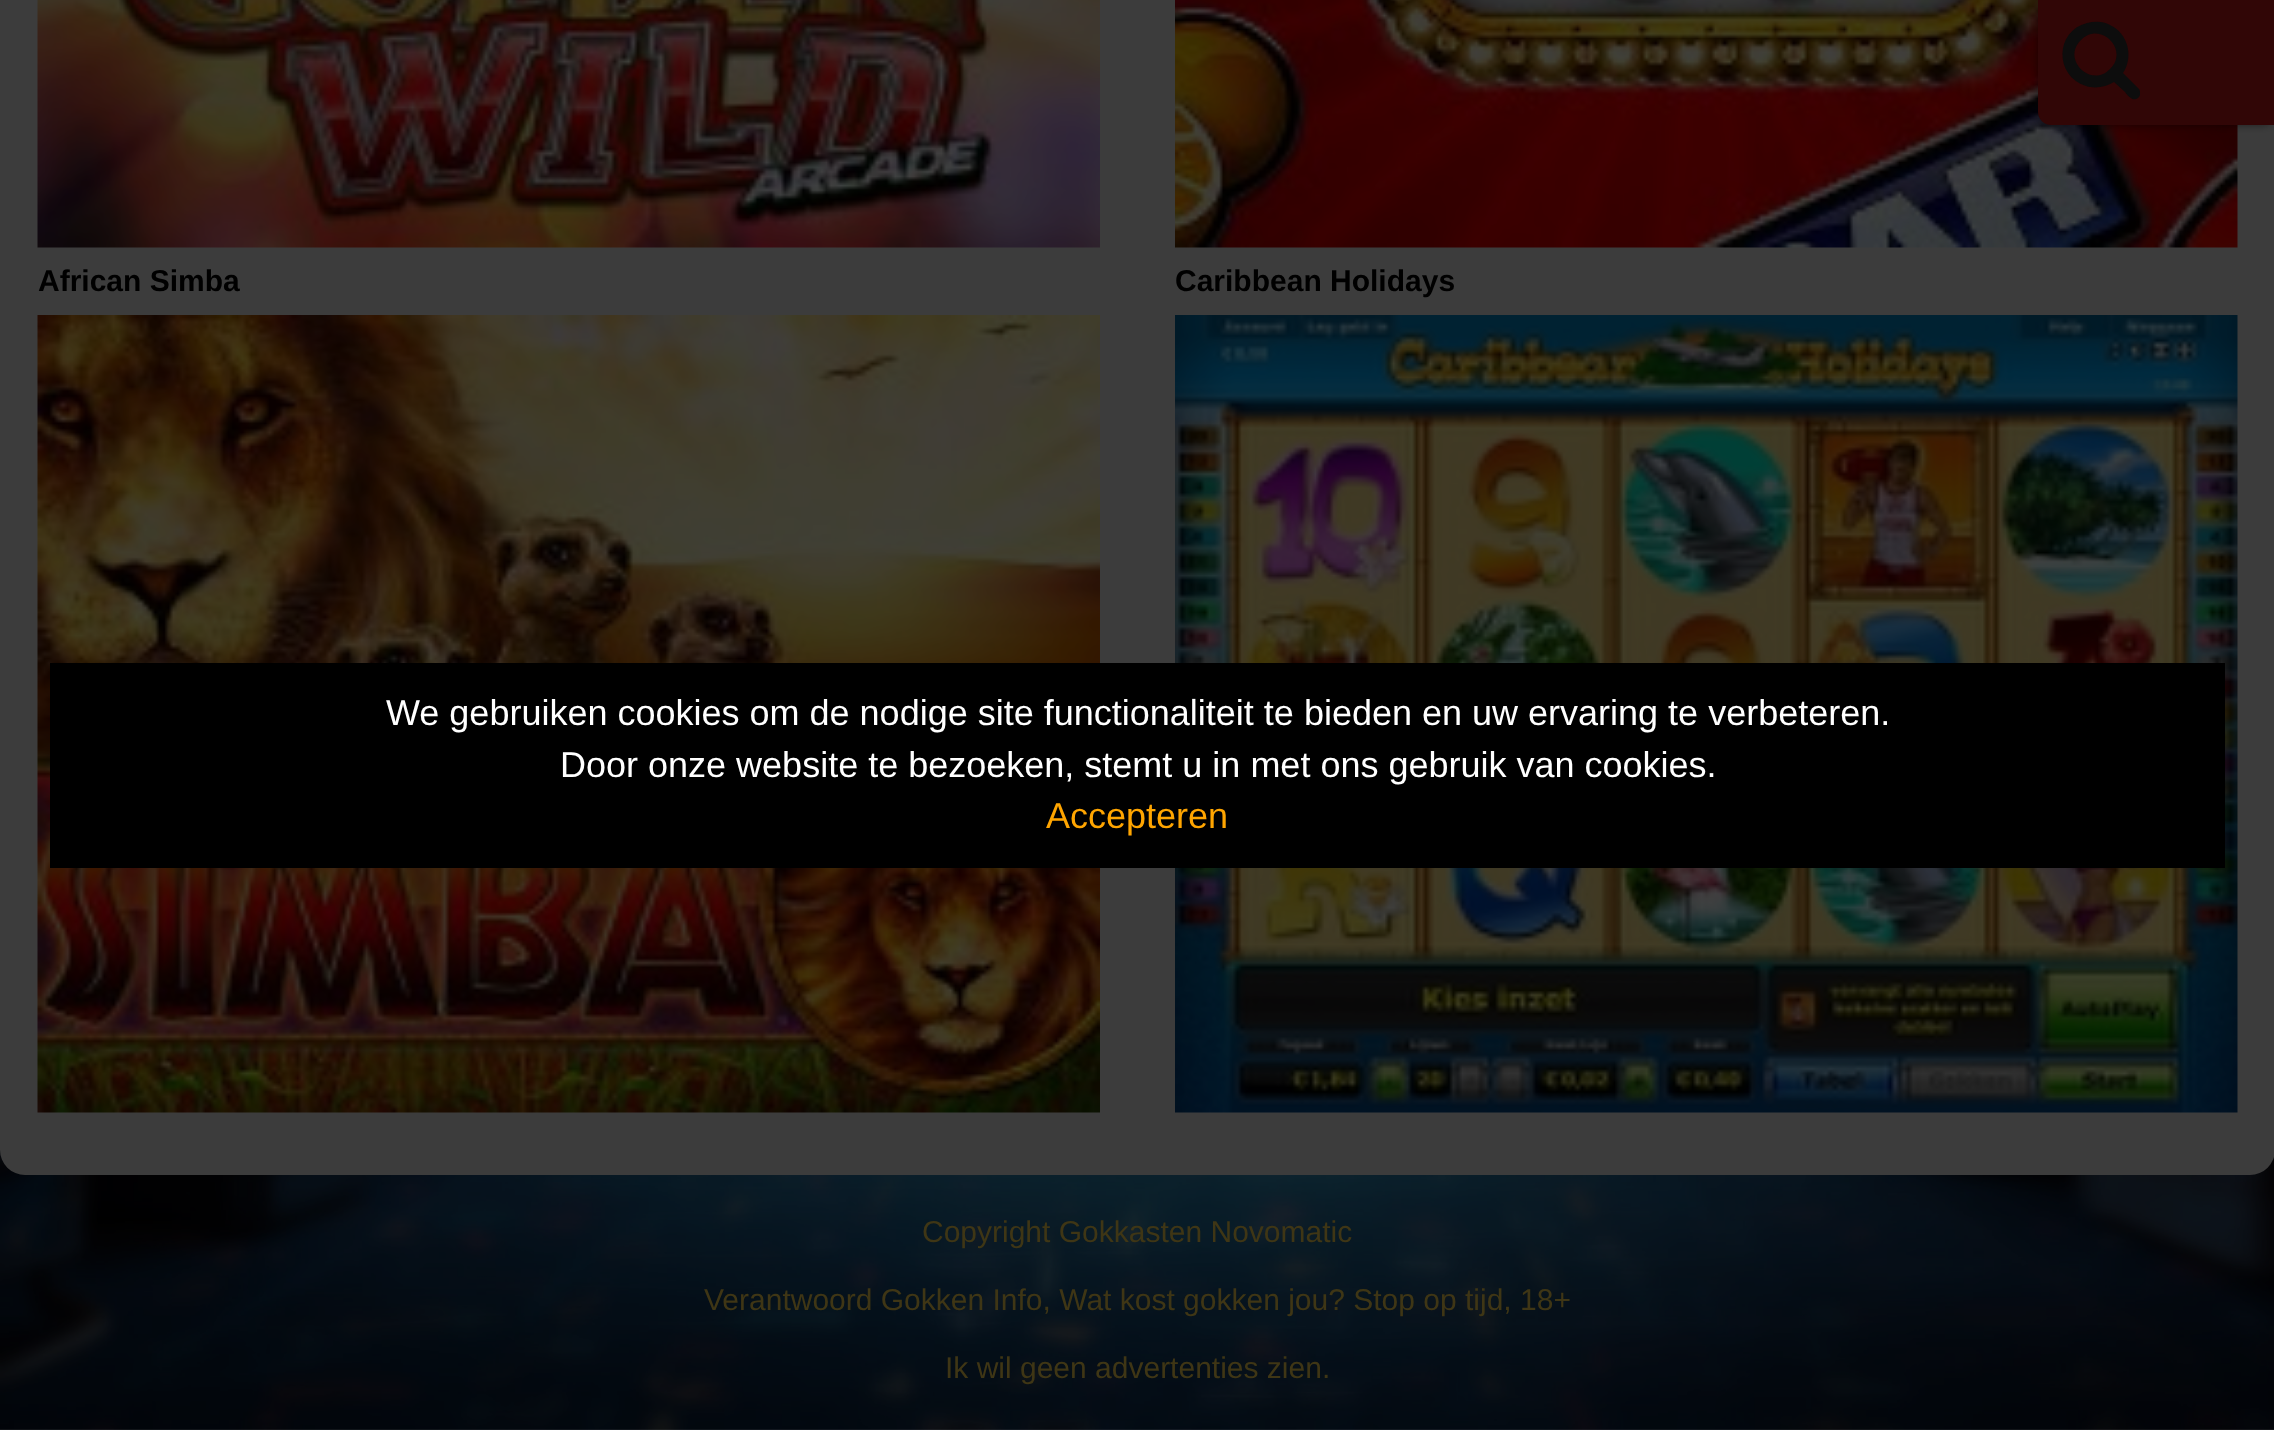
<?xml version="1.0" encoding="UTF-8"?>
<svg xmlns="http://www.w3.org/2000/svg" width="2274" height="1430">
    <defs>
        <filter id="blur1" x="-50%" y="-200%" width="200%" height="500%"><feGaussianBlur stdDeviation="4"/></filter>
    </defs>
    <rect width="100%" height="100%" fill="#FFFFFF"/>
    <image x="0" y="1150" width="2274" height="280" href="img_01.png"/>
    <rect x="0" y="-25" width="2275" height="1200" rx="25" fill="#3C3C3C"/>
    <image x="1175" y="0" width="1063" height="248" href="img_03.png"/>
    <rect x="2038" y="0" width="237" height="125" rx="13" fill="#000000" fill-opacity="0.5" filter="url(#blur1)"/>
    <path d="M 2038 0 H 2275 V 125 H 2051 C 2044 125 2038 119 2038 112 Z" fill="#310606"/>
    <path d="M 2110 69 C 2130 50 2100 20 2081 40 C 2061 59 2091 89 2110 69 Z M 2140 94 C 2140 96 2139 97 2138 98 C 2133 102 2128 96 2125 92 L 2114 82 C 2106 87 2095 89 2086 86 C 2054 76 2055 31 2087 23 C 2095 21 2103 21 2110 25 C 2128 33 2134 57 2123 73 L 2139 89 C 2140 90 2140 92 2140 94 Z" fill="#0D0D0D"/>
    <image x="37" y="0" width="1063" height="248" href="img_02.png"/>
    <text x="38" y="291" font-family="Liberation Sans" font-size="30" font-weight="700" fill="#000000">African Simba</text>
    <image x="37" y="315" width="1063" height="798" href="img_04.png"/>
    <text x="1175" y="291" font-family="Liberation Sans" font-size="30" font-weight="700" fill="#000000">Caribbean Holidays</text>
    <image x="1175" y="315" width="1063" height="798" href="img_05.png"/>
    <rect x="50" y="663" width="2175" height="205" fill="#000000"/>
    <text x="386" y="725" font-family="Liberation Sans" font-size="36" fill="#FFFFFF">We gebruiken cookies om de nodige site functionaliteit te bieden en uw ervaring te verbeteren.</text>
    <text x="560" y="777" font-family="Liberation Sans" font-size="36" fill="#FFFFFF">Door onze website te bezoeken, stemt u in met ons gebruik van cookies.</text>
    <text x="1046" y="828" font-family="Liberation Sans" font-size="36" fill="#FFA500">Accepteren</text>
    <text x="922" y="1242" font-family="Liberation Sans" font-size="30" fill="#3F3615">Copyright Gokkasten Novomatic</text>
    <text x="704" y="1310" font-family="Liberation Sans" font-size="30" fill="#3F3615">Verantwoord Gokken Info, Wat kost gokken jou? Stop op tijd, 18+</text>
    <text x="945" y="1378" font-family="Liberation Sans" font-size="30" fill="#3F3615">Ik wil geen advertenties zien.</text>
</svg>
